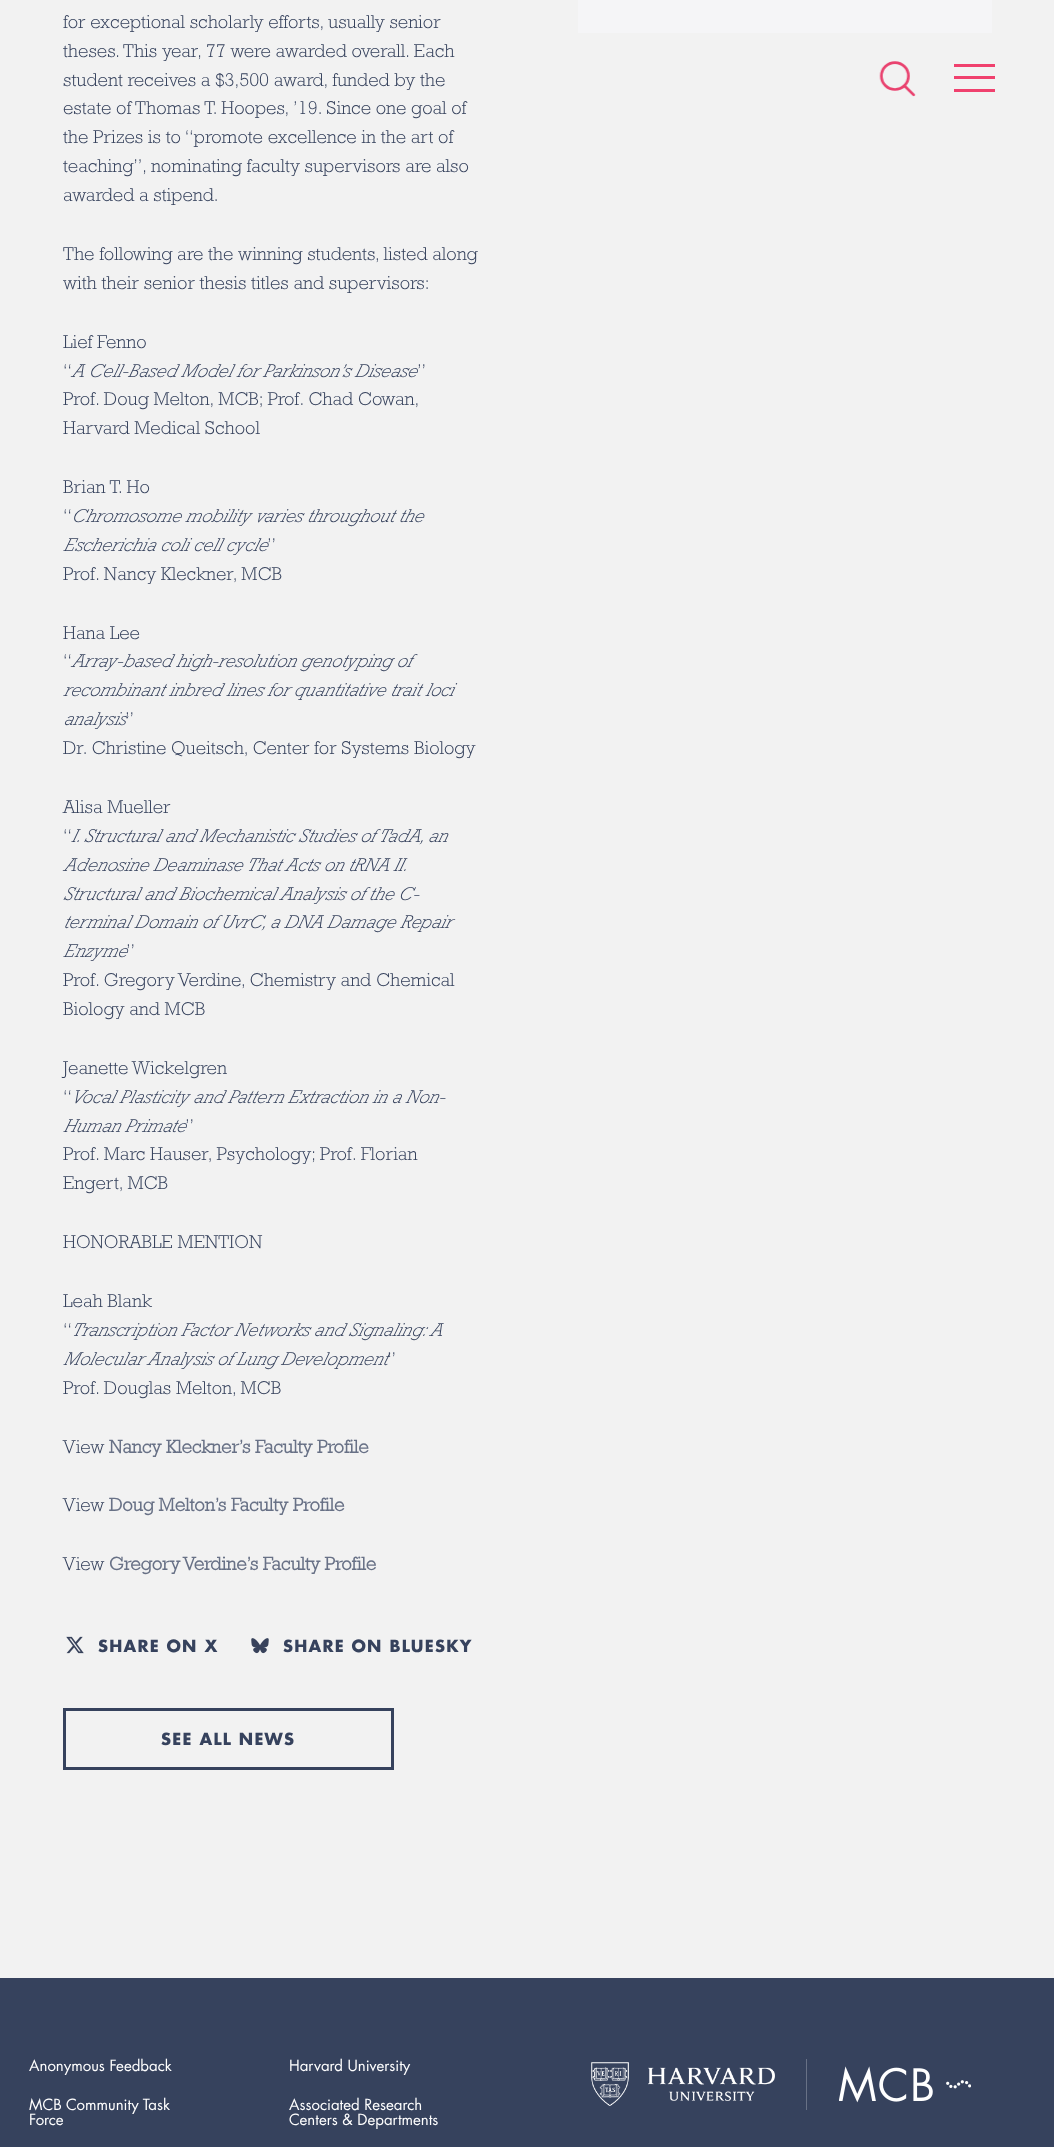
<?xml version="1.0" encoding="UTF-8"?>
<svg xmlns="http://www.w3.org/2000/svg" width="1054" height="2147">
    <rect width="100%" height="100%" fill="#36425D"/>
    <rect x="0" y="0" width="1054" height="1978" fill="#F2F2F2"/>
    <text font-family="Rockwell" font-size="18.75" font-weight="300" fill="#36425D">
        <tspan x="63" y="28">for exceptional scholarly efforts, usually senior</tspan>
        <tspan x="63" y="57">theses. This year, 77 were awarded overall. Each</tspan>
        <tspan x="63" y="86">student receives a $3,500 award, funded by the</tspan>
        <tspan x="63" y="114">estate of Thomas T. Hoopes, ’19. Since one goal of</tspan>
        <tspan x="63" y="143">the Prizes is to “promote excellence in the art of</tspan>
        <tspan x="63" y="172">teaching”, nominating faculty supervisors are also</tspan>
        <tspan x="63" y="201">awarded a stipend.</tspan>
    </text>
    <text font-family="Rockwell" font-size="18.75" font-weight="300" fill="#36425D">
        <tspan x="63" y="260">The following are the winning students, listed along</tspan>
        <tspan x="63" y="289">with their senior thesis titles and supervisors:</tspan>
    </text>
    <text font-family="Rockwell" font-size="18.75" font-weight="300" fill="#36425D">
        <tspan x="63" y="348">Lief Fenno</tspan>
        <tspan x="63" y="377">“</tspan>
    </text>
    <text x="71" y="377" font-family="Rockwell" font-size="18.75" font-weight="300" font-style="italic" fill="#36425D">A Cell-Based Model for Parkinson’s Disease</text>
    <text x="417" y="377" font-family="Rockwell" font-size="18.75" font-weight="300" fill="#36425D">”</text>
    <text font-family="Rockwell" font-size="18.75" font-weight="300" fill="#36425D">
        <tspan x="63" y="405">Prof. Doug Melton, MCB; Prof. Chad Cowan,</tspan>
        <tspan x="63" y="434">Harvard Medical School</tspan>
    </text>
    <text font-family="Rockwell" font-size="18.75" font-weight="300" fill="#36425D">
        <tspan x="63" y="493">Brian T. Ho</tspan>
        <tspan x="63" y="522">“</tspan>
    </text>
    <text x="71" y="522" font-family="Rockwell" font-size="18.75" font-weight="300" font-style="italic" fill="#36425D">Chromosome mobility varies throughout the</text>
    <text x="63" y="551" font-family="Rockwell" font-size="18.75" font-weight="300" font-style="italic" fill="#36425D">Escherichia coli cell cycle</text>
    <text x="267" y="551" font-family="Rockwell" font-size="18.75" font-weight="300" fill="#36425D">”</text>
    <text x="63" y="580" font-family="Rockwell" font-size="18.75" font-weight="300" fill="#36425D">Prof. Nancy Kleckner, MCB</text>
    <text font-family="Rockwell" font-size="18.75" font-weight="300" fill="#36425D">
        <tspan x="63" y="639">Hana Lee</tspan>
        <tspan x="63" y="667">“</tspan>
    </text>
    <text x="71" y="667" font-family="Rockwell" font-size="18.75" font-weight="300" font-style="italic" fill="#36425D">Array-based high-resolution genotyping of</text>
    <text font-family="Rockwell" font-size="18.75" font-weight="300" font-style="italic" fill="#36425D">
        <tspan x="63" y="696">recombinant inbred lines for quantitative trait loci</tspan>
        <tspan x="63" y="725">analysis</tspan>
    </text>
    <text x="125" y="725" font-family="Rockwell" font-size="18.75" font-weight="300" fill="#36425D">”</text>
    <text x="63" y="754" font-family="Rockwell" font-size="18.75" font-weight="300" fill="#36425D">Dr. Christine Queitsch, Center for Systems Biology</text>
    <text font-family="Rockwell" font-size="18.75" font-weight="300" fill="#36425D">
        <tspan x="63" y="813">Alisa Mueller</tspan>
        <tspan x="63" y="842">“</tspan>
    </text>
    <text x="71" y="842" font-family="Rockwell" font-size="18.75" font-weight="300" font-style="italic" fill="#36425D">I. Structural and Mechanistic Studies of TadA, an</text>
    <text font-family="Rockwell" font-size="18.75" font-weight="300" font-style="italic" fill="#36425D">
        <tspan x="63" y="871">Adenosine Deaminase That Acts on tRNA II.</tspan>
        <tspan x="63" y="900">Structural and Biochemical Analysis of the C-</tspan>
        <tspan x="63" y="928">terminal Domain of UvrC, a DNA Damage Repair</tspan>
        <tspan x="63" y="957">Enzyme</tspan>
    </text>
    <text x="126" y="957" font-family="Rockwell" font-size="18.75" font-weight="300" fill="#36425D">”</text>
    <text font-family="Rockwell" font-size="18.75" font-weight="300" fill="#36425D">
        <tspan x="63" y="986">Prof. Gregory Verdine, Chemistry and Chemical</tspan>
        <tspan x="63" y="1015">Biology and MCB</tspan>
    </text>
    <text font-family="Rockwell" font-size="18.75" font-weight="300" fill="#36425D">
        <tspan x="63" y="1074">Jeanette Wickelgren</tspan>
        <tspan x="63" y="1103">“</tspan>
    </text>
    <text x="71" y="1103" font-family="Rockwell" font-size="18.75" font-weight="300" font-style="italic" fill="#36425D">Vocal Plasticity and Pattern Extraction in a Non-</text>
    <text x="63" y="1132" font-family="Rockwell" font-size="18.75" font-weight="300" font-style="italic" fill="#36425D">Human Primate</text>
    <text x="185" y="1132" font-family="Rockwell" font-size="18.75" font-weight="300" fill="#36425D">”</text>
    <text font-family="Rockwell" font-size="18.75" font-weight="300" fill="#36425D">
        <tspan x="63" y="1160">Prof. Marc Hauser, Psychology; Prof. Florian</tspan>
        <tspan x="63" y="1189">Engert, MCB</tspan>
    </text>
    <text x="63" y="1248" font-family="Rockwell" font-size="18.75" font-weight="300" fill="#36425D">HONORABLE MENTION</text>
    <text font-family="Rockwell" font-size="18.75" font-weight="300" fill="#36425D">
        <tspan x="63" y="1307">Leah Blank</tspan>
        <tspan x="63" y="1336">“</tspan>
    </text>
    <text x="71" y="1336" font-family="Rockwell" font-size="18.75" font-weight="300" font-style="italic" fill="#36425D">Transcription Factor Networks and Signaling: A</text>
    <text x="63" y="1365" font-family="Rockwell" font-size="18.75" font-weight="300" font-style="italic" fill="#36425D">Molecular Analysis of Lung Development</text>
    <text x="387" y="1365" font-family="Rockwell" font-size="18.75" font-weight="300" fill="#36425D">”</text>
    <text x="63" y="1394" font-family="Rockwell" font-size="18.75" font-weight="300" fill="#36425D">Prof. Douglas Melton, MCB</text>
    <text x="63" y="1453" font-family="Rockwell" font-size="18.75" font-weight="300" fill="#36425D">View</text>
    <text x="109" y="1453" font-family="Rockwell" font-size="18.75" font-weight="700" fill="#687186">Nancy Kleckner’s Faculty Profile</text>
    <text x="63" y="1511" font-family="Rockwell" font-size="18.75" font-weight="300" fill="#36425D">View</text>
    <text x="109" y="1511" font-family="Rockwell" font-size="18.75" font-weight="700" fill="#687186">Doug Melton’s Faculty Profile</text>
    <text x="63" y="1570" font-family="Rockwell" font-size="18.75" font-weight="300" fill="#36425D">View</text>
    <text x="109" y="1570" font-family="Rockwell" font-size="18.75" font-weight="700" fill="#687186">Gregory Verdine’s Faculty Profile</text>
    <image x="66" y="1636" width="18" height="18" href="img_01.png"/>
    <text x="98" y="1652" font-family="Futura" font-size="16.25" font-weight="700" letter-spacing="1.25" fill="#36425D">SHARE ON X</text>
    <image x="251" y="1638" width="18" height="16" href="img_02.png"/>
    <text x="283" y="1652" font-family="Futura" font-size="16.25" font-weight="700" letter-spacing="1.25" fill="#36425D">SHARE ON BLUESKY</text>
    <rect x="64.5" y="1709.5" width="328" height="59" fill="none" stroke="#36425D" stroke-width="3"/>
    <text x="161" y="1745" font-family="Futura" font-size="16.25" font-weight="700" letter-spacing="1.25" fill="#36425D">SEE ALL NEWS</text>
    <rect x="578" y="0" width="414" height="33" fill="#F5F5F7"/>
    <image x="879" y="61" width="37" height="36" href="img_03.png"/>
    <rect x="954" y="64" width="41" height="3" fill="#F0416E"/>
    <rect x="954" y="76" width="41" height="3" fill="#F0416E"/>
    <rect x="954" y="89" width="41" height="3" fill="#F0416E"/>
    <text x="29" y="2071" font-family="Futura" font-size="15" fill="#FFFFFF">Anonymous Feedback</text>
    <text font-family="Futura" font-size="15" fill="#FFFFFF">
        <tspan x="29" y="2110">MCB Community Task</tspan>
        <tspan x="29" y="2125">Force</tspan>
    </text>
    <text x="289" y="2071" font-family="Futura" font-size="15" fill="#FFFFFF">Harvard University</text>
    <text font-family="Futura" font-size="15" fill="#FFFFFF">
        <tspan x="289" y="2110">Associated Research</tspan>
        <tspan x="289" y="2125">Centers &amp; Departments</tspan>
    </text>
    <rect x="806" y="2059" width="1" height="51" fill="#687186"/>
    <image x="591" y="2062" width="184" height="44" href="img_04.png"/>
    <image x="839" y="2066" width="132" height="37" href="img_05.png"/>
</svg>
